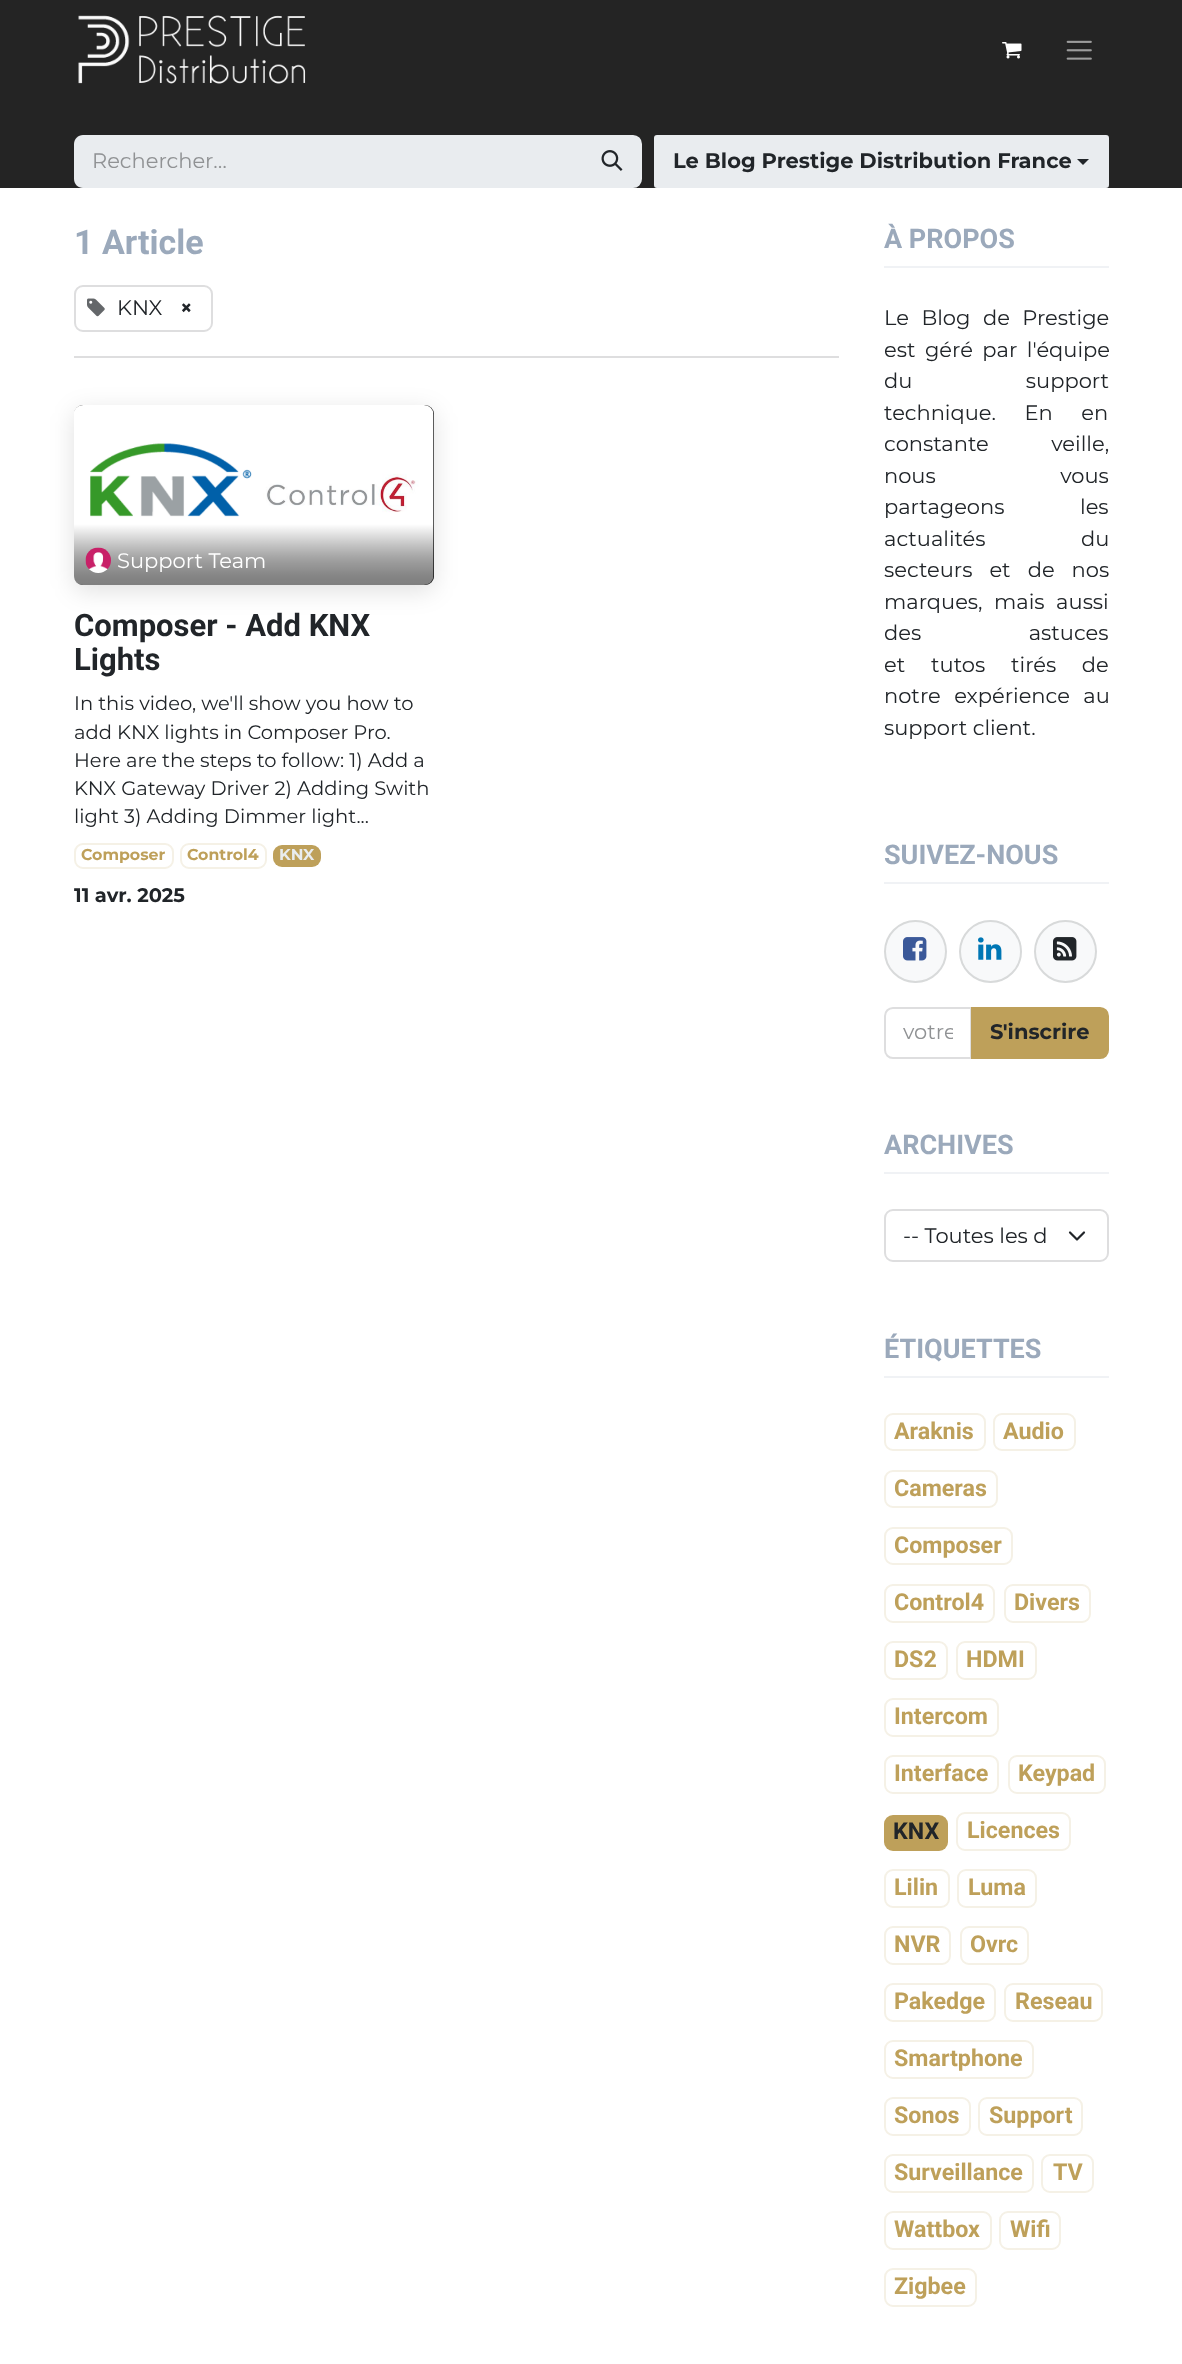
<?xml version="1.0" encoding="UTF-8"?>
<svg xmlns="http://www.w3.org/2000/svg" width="1182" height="2364">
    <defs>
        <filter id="blur1" x="-50%" y="-200%" width="200%" height="500%"><feGaussianBlur stdDeviation="12"/></filter>
        <linearGradient id="g1" gradientUnits="userSpaceOnUse" x1="254" y1="524" x2="254" y2="585"><stop offset="0" stop-color="#000000" stop-opacity="0"/><stop offset="0.19" stop-color="#000000" stop-opacity="0.13"/><stop offset="0.34" stop-color="#000000" stop-opacity="0.23"/><stop offset="0.47" stop-color="#000000" stop-opacity="0.31"/><stop offset="0.56" stop-color="#000000" stop-opacity="0.36"/><stop offset="0.65" stop-color="#000000" stop-opacity="0.4"/><stop offset="0.73" stop-color="#000000" stop-opacity="0.43"/><stop offset="0.8" stop-color="#000000" stop-opacity="0.46"/><stop offset="0.86" stop-color="#000000" stop-opacity="0.48"/><stop offset="0.91" stop-color="#000000" stop-opacity="0.49"/><stop offset="0.95" stop-color="#000000" stop-opacity="0.49"/><stop offset="0.98" stop-color="#000000" stop-opacity="0.5"/><stop offset="1" stop-color="#000000" stop-opacity="0.5"/></linearGradient>
        <clipPath id="clip1"><rect x="903" y="1019" width="50" height="27"/></clipPath>
    </defs>
    <rect width="100%" height="100%" fill="#FFFFFF"/>
    <rect x="0" y="0" width="1182" height="188" fill="#242424"/>
    <image x="78" y="15" width="228" height="69" href="img_01.png"/>
    <image x="1002" y="42" width="20" height="17" href="img_02.png"/>
    <image x="1066" y="40" width="26" height="20" href="img_03.png"/>
    <path d="M 83 135 H 584 V 188 H 83 C 78 188 74 184 74 179 V 144 C 74 139 78 135 83 135 Z" fill="#E9ECEF"/>
    <text x="92" y="168" font-family="Montserrat" font-size="21" fill="#909294">Rechercher…</text>
    <path d="M 583 136 H 633 C 637.5 136 641 139.5 641 144 V 179 C 641 183.5 637.5 187 633 187 H 583 Z" fill="#E9ECEF" stroke="#E9ECEF" stroke-width="2"/>
    <image x="601" y="150" width="22" height="21" href="img_04.png"/>
    <rect x="655" y="136" width="453" height="51" rx="2" fill="#E9ECEF" stroke="#E9ECEF" stroke-width="2"/>
    <text x="673" y="168" font-family="Montserrat" font-size="21" font-weight="700" fill="#212529">Le Blog Prestige Distribution France</text>
    <path d="M 1077 159 H 1089 L 1083 165 Z" fill="#212529"/>
    <text x="74" y="254" font-family="Roboto" font-size="34" font-weight="700" fill="#9BA9BB">1 Article</text>
    <rect x="75" y="286" width="137" height="45" rx="8" fill="none" stroke="#DEDEDF" stroke-width="2"/>
    <image x="87" y="298" width="18" height="19" href="img_05.png"/>
    <text x="117" y="315" font-family="Montserrat" font-size="21" fill="#212529">KNX</text>
    <text x="180" y="315" font-family="Montserrat" font-size="21" font-weight="700" fill="#212529">×</text>
    <rect x="74" y="356" width="765" height="2" fill="#DEDEDF"/>
    <rect x="74" y="411" width="360" height="180" rx="9" fill="#000000" fill-opacity="0.12" filter="url(#blur1)"/>
    <rect x="74" y="405" width="360" height="180" rx="9" fill="#242424"/>
    <image x="74" y="405" width="360" height="180" href="img_06.png"/>
    <path d="M 74 524 H 434 V 576 C 434 581 430 585 425 585 H 83 C 78 585 74 581 74 576 Z" fill="url(#g1)"/>
    <image x="85" y="547" width="26" height="26" href="img_07.png"/>
    <text x="117" y="568" font-family="Montserrat" font-size="21" fill="#FFFFFF">Support Team</text>
    <text font-family="Roboto" font-size="31" font-weight="700" fill="#212529">
        <tspan x="74" y="636">Composer - Add KNX</tspan>
        <tspan x="74" y="670">Lights</tspan>
    </text>
    <text font-family="Montserrat" font-size="19.5" fill="#212529">
        <tspan x="74" y="710">In this video, we'll show you how to</tspan>
        <tspan x="74" y="739">add KNX lights in Composer Pro.</tspan>
        <tspan x="74" y="767">Here are the steps to follow: 1) Add a</tspan>
        <tspan x="74" y="795">KNX Gateway Driver 2) Adding Swith</tspan>
        <tspan x="74" y="823">light 3) Adding Dimmer light...</tspan>
    </text>
    <rect x="75" y="844" width="98" height="24" rx="8" fill="none" stroke="#F5F1E6" stroke-width="2"/>
    <text x="81" y="860" font-family="Montserrat" font-size="15.75" font-weight="700" fill="#BEA05A">Composer</text>
    <rect x="181" y="844" width="85" height="24" rx="8" fill="none" stroke="#F5F1E6" stroke-width="2"/>
    <text x="187" y="860" font-family="Montserrat" font-size="15.75" font-weight="700" fill="#BEA05A">Control4</text>
    <rect x="273" y="845" width="48" height="22" rx="9" fill="#BEA05A"/>
    <text x="279" y="860" font-family="Montserrat" font-size="15.75" font-weight="700" fill="#E9ECEF">KNX</text>
    <text x="74" y="902" font-family="Montserrat" font-size="19.5" font-weight="700" fill="#212529">11 avr. 2025</text>
    <rect x="884" y="266" width="225" height="2" fill="#F0F2F5"/>
    <text x="884" y="248" font-family="Roboto" font-size="27" font-weight="700" fill="#9BA9BB">À PROPOS</text>
    <text font-family="Montserrat" font-size="21" fill="#212529">
        <tspan x="884" y="325" word-spacing="7">Le Blog de Prestige</tspan>
        <tspan x="884" y="357" word-spacing="4">est géré par l'équipe</tspan>
        <tspan x="884" y="388" word-spacing="108">du support</tspan>
        <tspan x="884" y="420" word-spacing="23">technique. En en</tspan>
        <tspan x="884" y="451" word-spacing="57">constante veille,</tspan>
        <tspan x="884" y="483" word-spacing="119">nous vous</tspan>
        <tspan x="884" y="514" word-spacing="70">partageons les</tspan>
        <tspan x="884" y="546" word-spacing="90">actualités du</tspan>
        <tspan x="884" y="577" word-spacing="11.5">secteurs et de nos</tspan>
        <tspan x="884" y="609" word-spacing="6">marques, mais aussi</tspan>
        <tspan x="884" y="640" word-spacing="102">des astuces</tspan>
        <tspan x="884" y="672">et</tspan>
    </text>
    <text x="931" y="672" font-family="Montserrat" font-size="21" fill="#212529">tutos</text>
    <text x="1011" y="672" word-spacing="20" font-family="Montserrat" font-size="21" fill="#212529">tirés de</text>
    <text font-family="Montserrat" font-size="21" fill="#212529">
        <tspan x="884" y="703" word-spacing="8">notre expérience au</tspan>
        <tspan x="884" y="735">support client.</tspan>
    </text>
    <rect x="884" y="882" width="225" height="2" fill="#F0F2F5"/>
    <text x="884" y="864" font-family="Roboto" font-size="27" font-weight="700" fill="#9BA9BB">SUIVEZ-NOUS</text>
    <circle cx="915.5" cy="951.5" r="31.5" fill="#F8F9FA"/>
    <circle cx="915.5" cy="951.5" r="30.5" fill="none" stroke="#212529" stroke-opacity="0.15" stroke-width="2"/>
    <image x="903" y="937" width="24" height="24" href="img_08.png"/>
    <circle cx="990.5" cy="951.5" r="31.5" fill="#F8F9FA"/>
    <circle cx="990.5" cy="951.5" r="30.5" fill="none" stroke="#212529" stroke-opacity="0.15" stroke-width="2"/>
    <image x="978" y="937" width="24" height="23" href="img_09.png"/>
    <circle cx="1065.5" cy="951.5" r="31.5" fill="#F8F9FA"/>
    <circle cx="1065.5" cy="951.5" r="30.5" fill="none" stroke="#212529" stroke-opacity="0.15" stroke-width="2"/>
    <image x="1053" y="937" width="24" height="24" href="img_10.png"/>
    <path d="M 893 1008 H 971 V 1058 H 893 C 888.5 1058 885 1054.5 885 1050 V 1016 C 885 1011.5 888.5 1008 893 1008 Z" fill="none" stroke="#DEDEDF" stroke-width="2"/>
    <g clip-path="url(#clip1)">
        <text x="903" y="1039" font-family="Montserrat" font-size="21" fill="#909294">votre</text>
    </g>
    <path d="M 972 1008 H 1100 C 1104.5 1008 1108 1011.5 1108 1016 V 1050 C 1108 1054.5 1104.5 1058 1100 1058 H 972 Z" fill="#BEA05A" stroke="#BEA05A" stroke-width="2"/>
    <text x="990" y="1039" font-family="Montserrat" font-size="21" font-weight="700" fill="#212529">S'inscrire</text>
    <rect x="884" y="1172" width="225" height="2" fill="#F0F2F5"/>
    <text x="884" y="1154" font-family="Roboto" font-size="27" font-weight="700" fill="#9BA9BB">ARCHIVES</text>
    <path d="M 1070 1232.5 L 1077 1239.5 L 1084 1232.5" fill="none" stroke="#212529" stroke-width="2.2" stroke-linecap="round" stroke-linejoin="round"/>
    <rect x="885" y="1210" width="223" height="51" rx="8" fill="none" stroke="#DEDEDF" stroke-width="2"/>
    <text x="903" y="1243" font-family="Montserrat" font-size="21" fill="#212529">-- Toutes les d</text>
    <rect x="884" y="1376" width="225" height="2" fill="#F0F2F5"/>
    <text x="884" y="1358" font-family="Roboto" font-size="27" font-weight="700" fill="#9BA9BB">ÉTIQUETTES</text>
    <rect x="885" y="1414" width="100" height="36" rx="8" fill="none" stroke="#F5F1E6" stroke-width="2"/>
    <text x="894" y="1439" font-family="Roboto" font-size="23.25" font-weight="700" fill="#BEA05A">Araknis</text>
    <rect x="994" y="1414" width="81" height="36" rx="8" fill="none" stroke="#F5F1E6" stroke-width="2"/>
    <text x="1003" y="1439" font-family="Roboto" font-size="23.25" font-weight="700" fill="#BEA05A">Audio</text>
    <rect x="885" y="1471" width="112" height="36" rx="8" fill="none" stroke="#F5F1E6" stroke-width="2"/>
    <text x="894" y="1496" font-family="Roboto" font-size="23.25" font-weight="700" fill="#BEA05A">Cameras</text>
    <rect x="885" y="1528" width="127" height="36" rx="8" fill="none" stroke="#F5F1E6" stroke-width="2"/>
    <text x="894" y="1553" font-family="Roboto" font-size="23.25" font-weight="700" fill="#BEA05A">Composer</text>
    <rect x="885" y="1585" width="109" height="37" rx="8" fill="none" stroke="#F5F1E6" stroke-width="2"/>
    <text x="894" y="1610" font-family="Roboto" font-size="23.25" font-weight="700" fill="#BEA05A">Control4</text>
    <rect x="1005" y="1585" width="85" height="37" rx="8" fill="none" stroke="#F5F1E6" stroke-width="2"/>
    <text x="1014" y="1610" font-family="Roboto" font-size="23.25" font-weight="700" fill="#BEA05A">Divers</text>
    <rect x="885" y="1642" width="62" height="37" rx="8" fill="none" stroke="#F5F1E6" stroke-width="2"/>
    <text x="894" y="1667" font-family="Roboto" font-size="23.25" font-weight="700" fill="#BEA05A">DS2</text>
    <rect x="957" y="1642" width="79" height="37" rx="8" fill="none" stroke="#F5F1E6" stroke-width="2"/>
    <text x="966" y="1667" font-family="Roboto" font-size="23.25" font-weight="700" fill="#BEA05A">HDMI</text>
    <rect x="885" y="1699" width="113" height="37" rx="8" fill="none" stroke="#F5F1E6" stroke-width="2"/>
    <text x="894" y="1724" font-family="Roboto" font-size="23.25" font-weight="700" fill="#BEA05A">Intercom</text>
    <rect x="885" y="1756" width="113" height="37" rx="8" fill="none" stroke="#F5F1E6" stroke-width="2"/>
    <text x="894" y="1781" font-family="Roboto" font-size="23.25" font-weight="700" fill="#BEA05A">Interface</text>
    <rect x="1009" y="1756" width="96" height="37" rx="8" fill="none" stroke="#F5F1E6" stroke-width="2"/>
    <text x="1018" y="1781" font-family="Roboto" font-size="23.25" font-weight="700" fill="#BEA05A">Keypad</text>
    <rect x="884" y="1815" width="64" height="36" rx="9" fill="#BEA05A"/>
    <text x="893" y="1839" font-family="Roboto" font-size="23.25" font-weight="700" fill="#212529">KNX</text>
    <rect x="957" y="1813" width="113" height="37" rx="8" fill="none" stroke="#F5F1E6" stroke-width="2"/>
    <text x="967" y="1838" font-family="Roboto" font-size="23.25" font-weight="700" fill="#BEA05A">Licences</text>
    <rect x="885" y="1870" width="64" height="37" rx="8" fill="none" stroke="#F5F1E6" stroke-width="2"/>
    <text x="894" y="1895" font-family="Roboto" font-size="23.25" font-weight="700" fill="#BEA05A">Lilin</text>
    <rect x="958" y="1870" width="78" height="37" rx="8" fill="none" stroke="#F5F1E6" stroke-width="2"/>
    <text x="968" y="1895" font-family="Roboto" font-size="23.25" font-weight="700" fill="#BEA05A">Luma</text>
    <rect x="885" y="1927" width="65" height="37" rx="8" fill="none" stroke="#F5F1E6" stroke-width="2"/>
    <text x="894" y="1952" font-family="Roboto" font-size="23.25" font-weight="700" fill="#BEA05A">NVR</text>
    <rect x="961" y="1927" width="67" height="37" rx="8" fill="none" stroke="#F5F1E6" stroke-width="2"/>
    <text x="970" y="1952" font-family="Roboto" font-size="23.25" font-weight="700" fill="#BEA05A">Ovrc</text>
    <rect x="885" y="1984" width="110" height="37" rx="8" fill="none" stroke="#F5F1E6" stroke-width="2"/>
    <text x="894" y="2009" font-family="Roboto" font-size="23.25" font-weight="700" fill="#BEA05A">Pakedge</text>
    <rect x="1005" y="1984" width="97" height="37" rx="8" fill="none" stroke="#F5F1E6" stroke-width="2"/>
    <text x="1015" y="2009" font-family="Roboto" font-size="23.25" font-weight="700" fill="#BEA05A">Reseau</text>
    <rect x="885" y="2041" width="148" height="37" rx="8" fill="none" stroke="#F5F1E6" stroke-width="2"/>
    <text x="894" y="2066" font-family="Roboto" font-size="23.25" font-weight="700" fill="#BEA05A">Smartphone</text>
    <rect x="885" y="2098" width="85" height="37" rx="8" fill="none" stroke="#F5F1E6" stroke-width="2"/>
    <text x="894" y="2123" font-family="Roboto" font-size="23.25" font-weight="700" fill="#BEA05A">Sonos</text>
    <rect x="979" y="2098" width="103" height="37" rx="8" fill="none" stroke="#F5F1E6" stroke-width="2"/>
    <text x="989" y="2123" font-family="Roboto" font-size="23.25" font-weight="700" fill="#BEA05A">Support</text>
    <rect x="885" y="2155" width="148" height="37" rx="8" fill="none" stroke="#F5F1E6" stroke-width="2"/>
    <text x="894" y="2180" font-family="Roboto" font-size="23.25" font-weight="700" fill="#BEA05A">Surveillance</text>
    <rect x="1042" y="2155" width="51" height="37" rx="8" fill="none" stroke="#F5F1E6" stroke-width="2"/>
    <text x="1053" y="2180" font-family="Roboto" font-size="23.25" font-weight="700" fill="#BEA05A">TV</text>
    <rect x="885" y="2212" width="106" height="37" rx="8" fill="none" stroke="#F5F1E6" stroke-width="2"/>
    <text x="894" y="2237" font-family="Roboto" font-size="23.25" font-weight="700" fill="#BEA05A">Wattbox</text>
    <rect x="1000" y="2212" width="60" height="37" rx="8" fill="none" stroke="#F5F1E6" stroke-width="2"/>
    <text x="1010" y="2237" font-family="Roboto" font-size="23.25" font-weight="700" fill="#BEA05A">Wifi</text>
    <rect x="885" y="2269" width="91" height="37" rx="8" fill="none" stroke="#F5F1E6" stroke-width="2"/>
    <text x="894" y="2294" font-family="Roboto" font-size="23.25" font-weight="700" fill="#BEA05A">Zigbee</text>
</svg>
